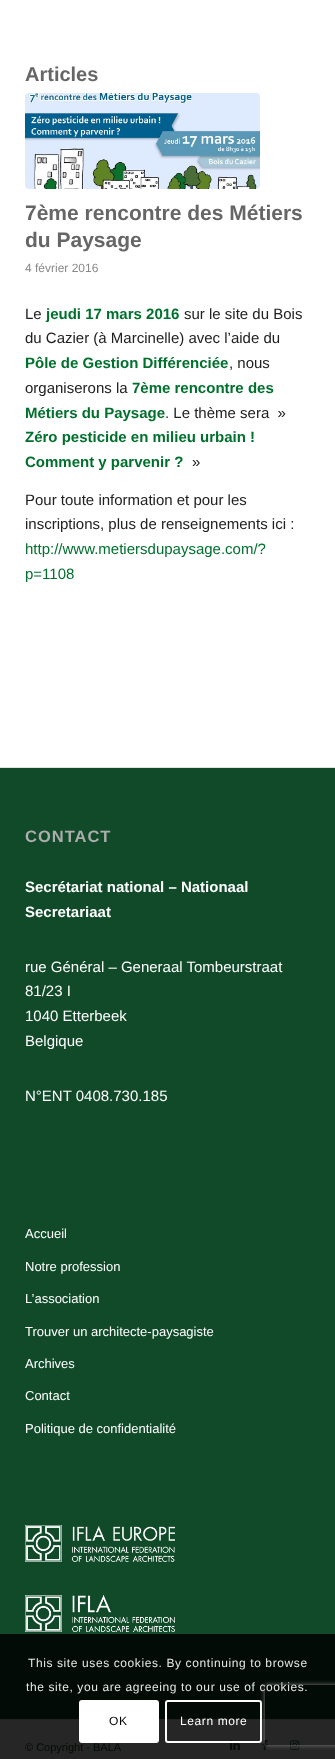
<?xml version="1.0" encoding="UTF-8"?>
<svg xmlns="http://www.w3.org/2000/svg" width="335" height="1759">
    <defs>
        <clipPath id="clip1"><path d="M 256 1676 H 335 V 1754 H 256 Z M 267 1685 H 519 C 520 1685 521 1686 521 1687 V 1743 C 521 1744 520 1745 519 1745 H 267 C 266 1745 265 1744 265 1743 V 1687 C 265 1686 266 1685 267 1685 Z" clip-rule="evenodd"/></clipPath>
        <filter id="blur1" x="-50%" y="-200%" width="200%" height="500%"><feGaussianBlur stdDeviation="2.5"/></filter>
    </defs>
    <rect width="100%" height="100%" fill="#FFFFFF"/>
    <text x="25" y="81" font-family="Liberation Sans" font-size="20" font-weight="700" fill="#666666">Articles</text>
    <image x="25" y="93" width="235" height="96" href="img_01.png"/>
    <text font-family="Liberation Sans" font-size="21" font-weight="700" fill="#666666">
        <tspan x="25" y="220">7ème rencontre des Métiers</tspan>
        <tspan x="25" y="247">du Paysage</tspan>
    </text>
    <text x="25" y="272" font-family="Liberation Sans" font-size="12" fill="#888888">4 février 2016</text>
    <text x="25" y="319" font-family="Liberation Sans" font-size="15" fill="#212121">Le</text>
    <text x="46" y="319" font-family="Liberation Sans" font-size="15" font-weight="700" fill="#00702D">jeudi 17 mars 2016</text>
    <text x="184" y="319" font-family="Liberation Sans" font-size="15" fill="#212121">sur le site du Bois</text>
    <text x="25" y="343" font-family="Liberation Sans" font-size="15" fill="#212121">du Cazier (à Marcinelle) avec l’aide du</text>
    <text x="25" y="368" font-family="Liberation Sans" font-size="15" font-weight="700" fill="#00702D">Pôle de Gestion Différenciée</text>
    <text x="229" y="368" font-family="Liberation Sans" font-size="15" fill="#212121">, nous</text>
    <text x="25" y="393" font-family="Liberation Sans" font-size="15" fill="#212121">organiserons la</text>
    <text x="132" y="393" font-family="Liberation Sans" font-size="15" font-weight="700" fill="#00702D">7ème rencontre des</text>
    <text x="25" y="418" font-family="Liberation Sans" font-size="15" font-weight="700" fill="#00702D">Métiers du Paysage</text>
    <text x="165" y="418" font-family="Liberation Sans" font-size="15" fill="#212121" xml:space="preserve">. Le thème sera  »</text>
    <text font-family="Liberation Sans" font-size="15" font-weight="700" fill="#00702D">
        <tspan x="25" y="442">Zéro pesticide en milieu urbain !</tspan>
        <tspan x="25" y="467">Comment y parvenir ?</tspan>
    </text>
    <text x="192" y="467" font-family="Liberation Sans" font-size="15" fill="#212121">»</text>
    <text font-family="Liberation Sans" font-size="15" fill="#212121">
        <tspan x="25" y="505">Pour toute information et pour les</tspan>
        <tspan x="25" y="529">inscriptions, plus de renseignements ici :</tspan>
    </text>
    <text font-family="Liberation Sans" font-size="15" fill="#00702D">
        <tspan x="25" y="554">http://www.metiersdupaysage.com/?</tspan>
        <tspan x="25" y="579">p=1108</tspan>
    </text>
    <rect x="0" y="768" width="335" height="866" fill="#114A29"/>
    <rect x="0" y="1634" width="335" height="85" fill="#030B06"/>
    <rect x="0" y="767" width="335" height="1" fill="#E1E1E1"/>
    <text x="25" y="842" font-family="Liberation Sans" font-size="16.5" font-weight="700" letter-spacing="1" fill="#ADADAD">CONTACT</text>
    <text font-family="Liberation Sans" font-size="15" font-weight="700" fill="#FFFFFF">
        <tspan x="25" y="892">Secrétariat national – Nationaal</tspan>
        <tspan x="25" y="917">Secretariaat</tspan>
    </text>
    <text font-family="Liberation Sans" font-size="15" fill="#FFFFFF">
        <tspan x="25" y="972">rue Général – Generaal Tombeurstraat</tspan>
        <tspan x="25" y="996">81/23 I</tspan>
        <tspan x="25" y="1021">1040 Etterbeek</tspan>
        <tspan x="25" y="1046">Belgique</tspan>
    </text>
    <text x="25" y="1101" font-family="Liberation Sans" font-size="15" fill="#FFFFFF">N°ENT 0408.730.185</text>
    <text x="25" y="1238" font-family="Liberation Sans" font-size="13" fill="#FFFFFF">Accueil</text>
    <text x="25" y="1271" font-family="Liberation Sans" font-size="13" fill="#FFFFFF">Notre profession</text>
    <text x="25" y="1303" font-family="Liberation Sans" font-size="13" fill="#FFFFFF">L’association</text>
    <text x="25" y="1336" font-family="Liberation Sans" font-size="13" fill="#FFFFFF">Trouver un architecte-paysagiste</text>
    <text x="25" y="1368" font-family="Liberation Sans" font-size="13" fill="#FFFFFF">Archives</text>
    <text x="25" y="1400" font-family="Liberation Sans" font-size="13" fill="#FFFFFF">Contact</text>
    <text x="25" y="1433" font-family="Liberation Sans" font-size="13" fill="#FFFFFF">Politique de confidentialité</text>
    <image x="25" y="1525" width="150" height="37" href="img_02.png"/>
    <image x="25" y="1595" width="150" height="37" href="img_03.png"/>
    <rect x="0" y="1720" width="335" height="39" fill="#262626"/>
    <rect x="0" y="1719" width="335" height="1" fill="#222222"/>
    <text x="25" y="1751" font-family="Liberation Sans" font-size="11" fill="#030B06">© Copyright - BALA</text>
    <image x="230" y="1740" width="10" height="10" href="img_04.png"/>
    <image x="262" y="1740" width="6" height="11" href="img_05.png"/>
    <image x="290" y="1740" width="10" height="10" href="img_06.png"/>
    <text x="28" y="1667" font-family="Liberation Sans" font-size="12" letter-spacing="0.6" fill="#E6E7E6">This site uses cookies. By continuing to browse</text>
    <text x="26" y="1691" font-family="Liberation Sans" font-size="12" letter-spacing="0.6" fill="#E6E7E6">the site, you are agreeing to our use of cookies.</text>
    <rect x="79" y="1700" width="80" height="43" rx="3" fill="#FFFFFF"/>
    <text x="109" y="1725" font-family="Liberation Sans" font-size="12" letter-spacing="0.6" fill="#000000">OK</text>
    <rect x="166" y="1701" width="95" height="41" rx="2" fill="none" stroke="#FFFFFF" stroke-width="2"/>
    <text x="180" y="1725" font-family="Liberation Sans" font-size="12" letter-spacing="0.6" fill="#FFFFFF">Learn more</text>
    <g clip-path="url(#clip1)">
        <rect x="265" y="1685" width="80" height="60" rx="2" fill="#808080" filter="url(#blur1)"/>
    </g>
</svg>
